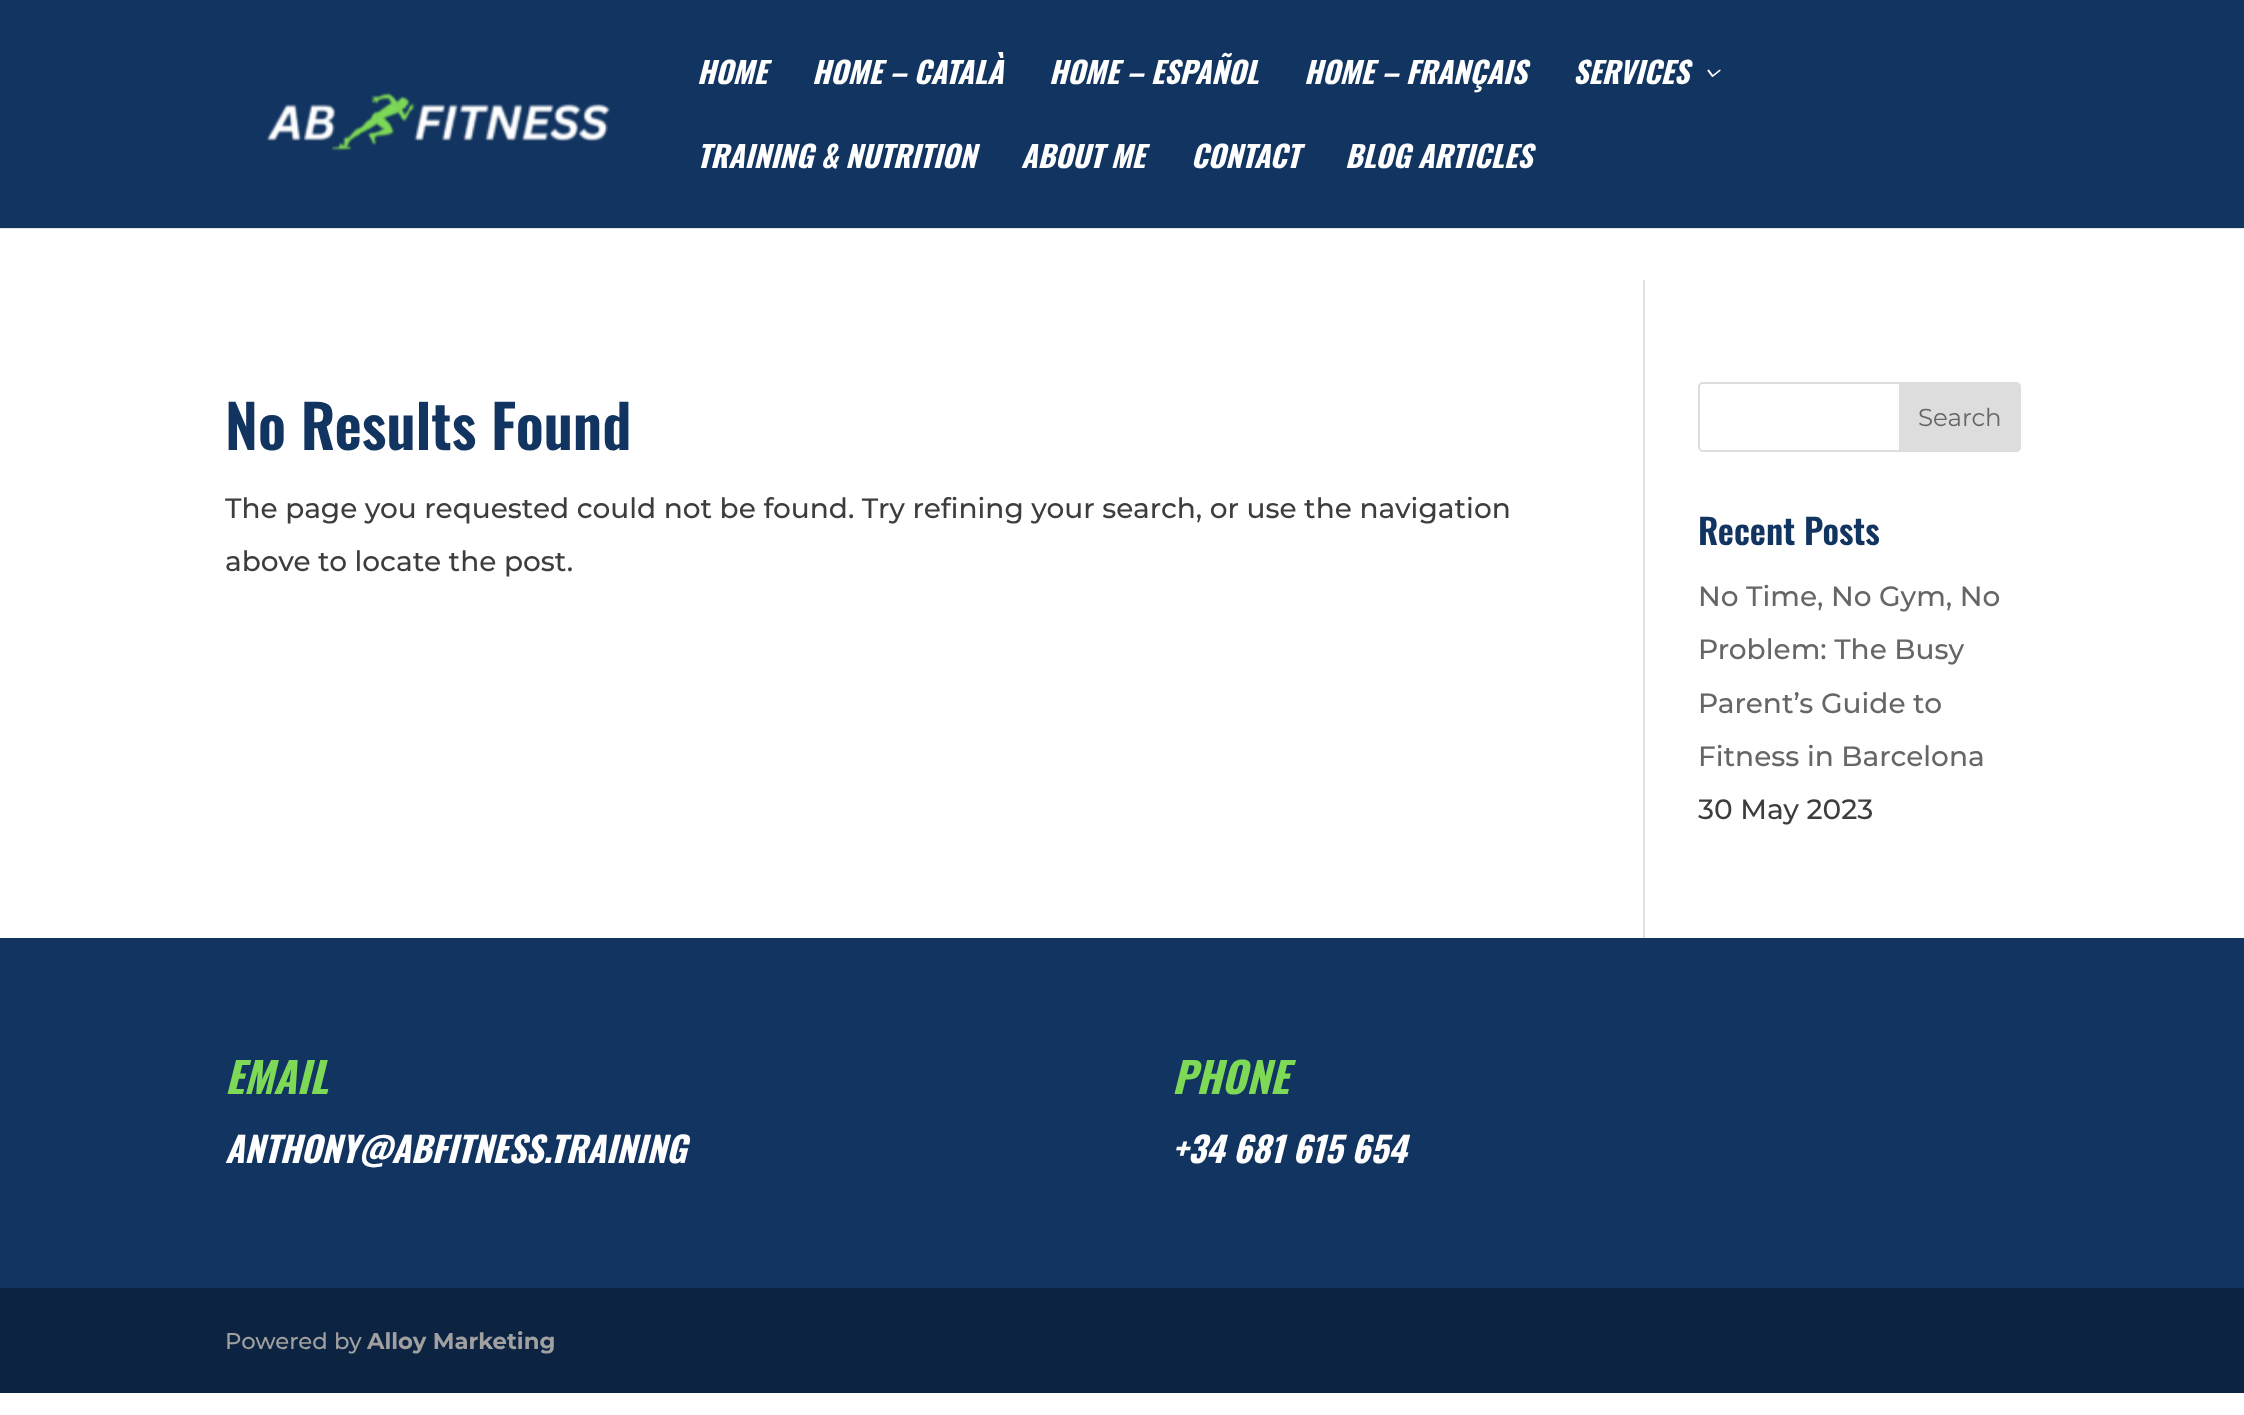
<?xml version="1.0" encoding="UTF-8"?>
<svg xmlns="http://www.w3.org/2000/svg" width="2244" height="1415">
    <rect width="100%" height="100%" fill="#FFFFFF"/>
    <rect x="0" y="228" width="2244" height="1" fill="#E6E6E6"/>
    <rect x="0" y="0" width="2244" height="228" fill="#123460"/>
    <image x="266" y="92" width="344" height="59" href="img_01.png"/>
    <text x="697" y="84" font-family="Oswald" font-size="29.75" font-weight="700" font-style="italic" fill="#FFFFFF">HOME</text>
    <text x="812" y="84" font-family="Oswald" font-size="29.75" font-weight="700" font-style="italic" fill="#FFFFFF">HOME – CATALÀ</text>
    <text x="1049" y="84" font-family="Oswald" font-size="29.75" font-weight="700" font-style="italic" fill="#FFFFFF">HOME – ESPAÑOL</text>
    <text x="1304" y="84" font-family="Oswald" font-size="29.75" font-weight="700" font-style="italic" fill="#FFFFFF">HOME – FRANÇAIS</text>
    <text x="1573" y="84" font-family="Oswald" font-size="29.75" font-weight="700" font-style="italic" fill="#FFFFFF">SERVICES</text>
    <image x="1707" y="69" width="14" height="8" href="img_02.png"/>
    <text x="697" y="168" font-family="Oswald" font-size="29.75" font-weight="700" font-style="italic" fill="#FFFFFF">TRAINING &amp; NUTRITION</text>
    <text x="1021" y="168" font-family="Oswald" font-size="29.75" font-weight="700" font-style="italic" fill="#FFFFFF">ABOUT ME</text>
    <text x="1191" y="168" font-family="Oswald" font-size="29.75" font-weight="700" font-style="italic" fill="#FFFFFF">CONTACT</text>
    <text x="1345" y="168" font-family="Oswald" font-size="29.75" font-weight="700" font-style="italic" fill="#FFFFFF">BLOG ARTICLES</text>
    <rect x="1643" y="280" width="2" height="658" fill="#E2E2E2"/>
    <text x="225" y="450" font-family="Oswald" font-size="59.5" font-weight="600" fill="#123460">No Results Found</text>
    <text font-family="Montserrat" font-size="28" font-weight="500" fill="#3D3D3D">
        <tspan x="225" y="518">The page you requested could not be found. Try refining your search, or use the navigation</tspan>
        <tspan x="225" y="571">above to locate the post.</tspan>
    </text>
    <rect x="1699" y="383" width="321" height="68" rx="4" fill="none" stroke="#DDDDDD" stroke-width="2"/>
    <path d="M 1900 383 H 2016 C 2018 383 2020 385 2020 387 V 447 C 2020 449 2018 451 2016 451 H 1900 Z" fill="#DDDDDD" stroke="#DDDDDD" stroke-width="2"/>
    <text x="1918" y="426" font-family="Montserrat" font-size="24.5" fill="#666666">Search</text>
    <text x="1698" y="545" font-family="Oswald" font-size="35" font-weight="600" fill="#123460">Recent Posts</text>
    <text font-family="Montserrat" font-size="28" font-weight="500" fill="#666666">
        <tspan x="1698" y="606">No Time, No Gym, No</tspan>
        <tspan x="1698" y="659">Problem: The Busy</tspan>
        <tspan x="1698" y="713">Parent’s Guide to</tspan>
        <tspan x="1698" y="766">Fitness in Barcelona</tspan>
    </text>
    <text x="1698" y="819" font-family="Montserrat" font-size="28" font-weight="500" fill="#3D3D3D">30 May 2023</text>
    <rect x="0" y="938" width="2244" height="350" fill="#123460"/>
    <text x="225" y="1094" font-family="Oswald" font-size="42" font-weight="700" font-style="italic" fill="#7ED957">EMAIL</text>
    <text x="225" y="1163" font-family="Oswald" font-size="35" font-weight="700" font-style="italic" fill="#FFFFFF">ANTHONY@ABFITNESS.TRAINING</text>
    <text x="1172" y="1094" font-family="Oswald" font-size="42" font-weight="700" font-style="italic" fill="#7ED957">PHONE</text>
    <text x="1172" y="1163" font-family="Oswald" font-size="35" font-weight="700" font-style="italic" fill="#FFFFFF">+34 681 615 654</text>
    <rect x="0" y="1288" width="2244" height="105" fill="#0C2341"/>
    <text x="225" y="1349" font-family="Montserrat" font-size="22.75" font-weight="500" fill="#A0A0A0">Powered by</text>
    <text x="367" y="1349" font-family="Montserrat" font-size="22.75" font-weight="700" fill="#A0A0A0">Alloy Marketing</text>
</svg>
